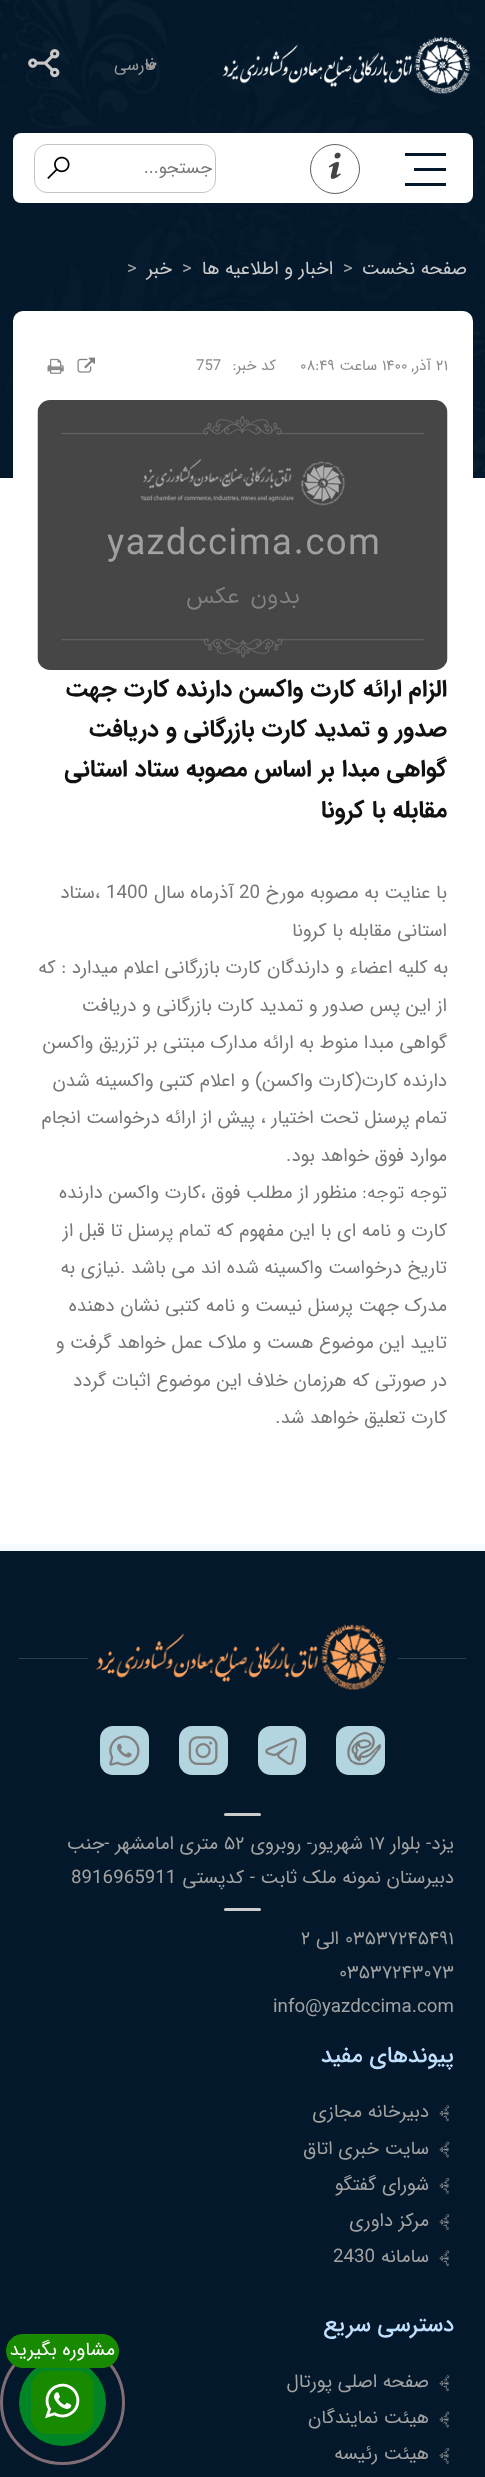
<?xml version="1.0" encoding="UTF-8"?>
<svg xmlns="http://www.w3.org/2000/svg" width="485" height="2477">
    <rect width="100%" height="100%" fill="#FFFFFF"/>
    <rect x="0" y="0" width="485" height="478" fill="#03182A"/>
    <image x="0" y="0" width="485" height="472" href="img_01.png"/>
    <image x="222" y="37" width="248" height="57" href="img_02.png"/>
    <path d="M 146 63 L 151 68 L 156 63" fill="none" stroke="#999999" stroke-width="2.5"/>
    <text x="156" y="70" font-family="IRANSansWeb" font-size="17" direction="rtl" fill="#999999">فارسی</text>
    <image x="28" y="49" width="32" height="29" href="img_03.png"/>
    <rect x="13" y="133" width="460" height="70" rx="8" fill="#FFFFFF"/>
    <circle cx="335" cy="169" r="24.5" fill="none" stroke="#605E5E"/>
    <image x="328" y="152" width="13" height="27" href="img_04.png"/>
    <rect x="405" y="153" width="41" height="3" fill="#03182A"/>
    <rect x="414" y="168" width="32" height="3" fill="#03182A"/>
    <rect x="405" y="183" width="41" height="3" fill="#03182A"/>
    <image x="47" y="156" width="23" height="23" href="img_05.png"/>
    <rect x="34.5" y="144.5" width="181" height="48" rx="12.5" fill="none" stroke="#C4C4C4"/>
    <text x="212" y="173" font-family="IRANSansWeb" font-size="17.5" direction="rtl" fill="#777777">جستجو...</text>
    <text x="467" y="274" font-family="IRANSansWeb" font-size="18.75" direction="rtl" fill="#CCCCCC">صفحه نخست</text>
    <text x="343" y="274" font-family="IRANSansWeb" font-size="18.75" fill="#A2A2A2">&gt;</text>
    <text x="333" y="274" font-family="IRANSansWeb" font-size="18.75" direction="rtl" fill="#CCCCCC">اخبار و اطلاعیه ها</text>
    <text x="182" y="274" font-family="IRANSansWeb" font-size="18.75" fill="#A2A2A2">&gt;</text>
    <text x="172" y="274" font-family="IRANSansWeb" font-size="18.75" direction="rtl" fill="#CCCCCC">خبر</text>
    <text x="127" y="274" font-family="IRANSansWeb" font-size="18.75" fill="#A2A2A2">&gt;</text>
    <rect x="13" y="311" width="460" height="1183" rx="10" fill="#FFFFFF"/>
    <text x="436" y="370" font-family="IRANSansWeb" font-size="15" fill="#8B8B8B">۲۱</text>
    <text x="431" y="370" font-family="IRANSansWeb" font-size="15" direction="rtl" fill="#8B8B8B">آذر,</text>
    <text x="382" y="370" font-family="IRANSansWeb" font-size="15" fill="#8B8B8B">۱۴۰۰</text>
    <text x="377" y="370" font-family="IRANSansWeb" font-size="15" direction="rtl" fill="#8B8B8B">ساعت</text>
    <text x="300" y="370" font-family="IRANSansWeb" font-size="15" fill="#8B8B8B">۰۸:۴۹</text>
    <text x="276" y="370" font-family="IRANSansWeb" font-size="15" direction="rtl" fill="#8B8B8B">کد خبر:</text>
    <text x="196" y="370" font-family="IRANSansWeb" font-size="15" fill="#8B8B8B">757</text>
    <image x="77" y="357" width="18" height="16" href="img_06.png"/>
    <image x="47" y="358" width="17" height="16" href="img_07.png"/>
    <image x="37" y="400" width="411" height="270" href="img_08.png"/>
    <text font-family="IRANSansWeb" font-size="23.75" font-weight="700" direction="rtl" fill="#111111">
        <tspan x="447" y="696">الزام ارائه کارت واکسن دارنده کارت جهت</tspan>
        <tspan x="447" y="736">صدور و تمدید کارت بازرگانی و دریافت</tspan>
        <tspan x="447" y="776">گواهی مبدا بر اساس مصوبه ستاد استانی</tspan>
        <tspan x="447" y="817">مقابله با کرونا</tspan>
    </text>
    <text x="447" y="898" font-family="IRANSansWeb" font-size="18.75" direction="rtl" fill="#777777">با عنایت به مصوبه مورخ</text>
    <text x="239" y="898" font-family="IRANSansWeb" font-size="18.75" fill="#777777">20</text>
    <text x="234" y="898" font-family="IRANSansWeb" font-size="18.75" direction="rtl" fill="#777777">آذرماه سال</text>
    <text x="106" y="898" font-family="IRANSansWeb" font-size="18.75" fill="#777777">1400</text>
    <text x="100" y="898" font-family="IRANSansWeb" font-size="18.75" direction="rtl" fill="#777777">،ستاد</text>
    <text x="447" y="936" font-family="IRANSansWeb" font-size="18.75" direction="rtl" fill="#777777">استانی مقابله با کرونا</text>
    <text x="448" y="973" font-family="IRANSansWeb" font-size="18.75" direction="rtl" fill="#777777">به کلیه اعضاء و دارندگان کارت بازرگانی اعلام میدارد : که</text>
    <text font-family="IRANSansWeb" font-size="18.75" direction="rtl" fill="#777777">
        <tspan x="447" y="1011">از این پس صدور و تمدید کارت بازرگانی و دریافت</tspan>
        <tspan x="447" y="1048">گواهی مبدا منوط به ارائه مدارک مبتنی بر تزریق واکسن</tspan>
    </text>
    <text font-family="IRANSansWeb" font-size="18.75" direction="rtl" fill="#777777">
        <tspan x="447" y="1086">دارنده کارت(کارت واکسن) و اعلام کتبی واکسینه شدن</tspan>
        <tspan x="447" y="1123">تمام پرسنل تحت اختیار ، پیش از ارائه درخواست انجام</tspan>
    </text>
    <text x="447" y="1161" font-family="IRANSansWeb" font-size="18.75" direction="rtl" fill="#777777">موارد فوق خواهد بود.</text>
    <text x="447" y="1198" font-family="IRANSansWeb" font-size="18.75" font-weight="300" direction="rtl" fill="#666666">توجه توجه:</text>
    <text x="357" y="1198" font-family="IRANSansWeb" font-size="18.75" direction="rtl" fill="#777777">منظور از مطلب فوق ،کارت واکسن دارنده</text>
    <text font-family="IRANSansWeb" font-size="18.75" direction="rtl" fill="#777777">
        <tspan x="447" y="1236">کارت و نامه ای با این مفهوم که تمام پرسنل تا قبل از</tspan>
        <tspan x="447" y="1273">تاریخ درخواست واکسینه شده اند می باشد .نیازی به</tspan>
    </text>
    <text font-family="IRANSansWeb" font-size="18.75" direction="rtl" fill="#777777">
        <tspan x="447" y="1311">مدرک جهت پرسنل نیست و نامه کتبی نشان دهنده</tspan>
        <tspan x="447" y="1348">تایید این موضوع هست و ملاک عمل خواهد گرفت و</tspan>
    </text>
    <text font-family="IRANSansWeb" font-size="18.75" direction="rtl" fill="#777777">
        <tspan x="447" y="1386">در صورتی که هرزمان خلاف این موضوع اثبات گردد</tspan>
        <tspan x="447" y="1423">کارت تعلیق خواهد شد.</tspan>
    </text>
    <rect x="0" y="1551" width="485" height="926" fill="#03182A"/>
    <rect x="0" y="1544" width="485" height="7" fill="#F4FAFE"/>
    <rect x="19" y="1658" width="447" height="1" fill="#2C434A"/>
    <rect x="88" y="1658" width="310" height="1" fill="#03182A"/>
    <image x="96" y="1624" width="290" height="66" href="img_09.png"/>
    <rect x="336" y="1726" width="49" height="49" rx="13" fill="#B2D5DF"/>
    <image x="347" y="1731" width="35" height="35" href="img_10.png"/>
    <rect x="258" y="1726" width="48" height="49" rx="13" fill="#B2D5DF"/>
    <image x="265" y="1737" width="32" height="28" href="img_11.png"/>
    <rect x="179" y="1726" width="49" height="49" rx="13" fill="#B2D5DF"/>
    <image x="188" y="1736" width="30" height="29" href="img_12.png"/>
    <rect x="100" y="1726" width="49" height="49" rx="13" fill="#B2D5DF"/>
    <image x="109" y="1735" width="31" height="31" href="img_13.png"/>
    <rect x="224" y="1813" width="37" height="3" rx="1.5" fill="#CCCCCC"/>
    <text x="454" y="1849" font-family="IRANSansWeb" font-size="18.75" direction="rtl" fill="#A2A2A2">یزد- بلوار</text>
    <text x="369" y="1849" font-family="IRANSansWeb" font-size="18.75" fill="#A2A2A2">١٧</text>
    <text x="363" y="1849" font-family="IRANSansWeb" font-size="18.75" direction="rtl" fill="#A2A2A2">شهریور- روبروی</text>
    <text x="224" y="1849" font-family="IRANSansWeb" font-size="18.75" fill="#A2A2A2">۵٢</text>
    <text x="218" y="1849" font-family="IRANSansWeb" font-size="18.75" direction="rtl" fill="#A2A2A2">متری امامشهر -جنب</text>
    <text x="454" y="1883" font-family="IRANSansWeb" font-size="18.75" direction="rtl" fill="#A2A2A2">دبیرستان نمونه ملک ثابت - کدپستی</text>
    <text x="71" y="1883" font-family="IRANSansWeb" font-size="18.75" fill="#A2A2A2">8916965911</text>
    <rect x="224" y="1908" width="37" height="3" rx="1.5" fill="#CCCCCC"/>
    <text x="345" y="1944" font-family="IRANSansWeb" font-size="18.75" fill="#A2A2A2">۰٣۵٣٧٢۴۵۴٩١</text>
    <text x="339" y="1944" font-family="IRANSansWeb" font-size="18.75" direction="rtl" fill="#A2A2A2">الی</text>
    <text x="301" y="1944" font-family="IRANSansWeb" font-size="18.75" fill="#A2A2A2">۲</text>
    <text x="339" y="1978" font-family="IRANSansWeb" font-size="18.75" fill="#A2A2A2">۰٣۵٣٧٢۴٣۰٧٣</text>
    <text x="273" y="2012" font-family="IRANSansWeb" font-size="18.75" fill="#A2A2A2">info@yazdccima.com</text>
    <text x="454" y="2062" font-family="IRANSansWeb" font-size="22.5" font-weight="500" direction="rtl" fill="#C1DFFF">پیوندهای مفید</text>
    <image x="439" y="2105" width="11" height="17" href="img_14.png"/>
    <text x="429" y="2117" font-family="IRANSansWeb" font-size="18.75" direction="rtl" fill="#A2A2A2">دبیرخانه مجازی</text>
    <image x="439" y="2141" width="11" height="17" href="img_15.png"/>
    <text x="429" y="2154" font-family="IRANSansWeb" font-size="18.75" direction="rtl" fill="#A2A2A2">سایت خبری اتاق</text>
    <image x="439" y="2178" width="11" height="16" href="img_16.png"/>
    <text x="429" y="2190" font-family="IRANSansWeb" font-size="18.75" direction="rtl" fill="#A2A2A2">شورای گفتگو</text>
    <image x="439" y="2214" width="11" height="16" href="img_17.png"/>
    <text x="429" y="2226" font-family="IRANSansWeb" font-size="18.75" direction="rtl" fill="#A2A2A2">مرکز داوری</text>
    <image x="439" y="2250" width="11" height="17" href="img_14.png"/>
    <text x="429" y="2262" font-family="IRANSansWeb" font-size="18.75" direction="rtl" fill="#A2A2A2">سامانه</text>
    <text x="333" y="2262" font-family="IRANSansWeb" font-size="18.75" fill="#A2A2A2">2430</text>
    <text x="454" y="2331" font-family="IRANSansWeb" font-size="22.5" font-weight="500" direction="rtl" fill="#C1DFFF">دسترسی سریع</text>
    <image x="439" y="2375" width="11" height="17" href="img_14.png"/>
    <text x="429" y="2387" font-family="IRANSansWeb" font-size="18.75" direction="rtl" fill="#A2A2A2">صفحه اصلی پورتال</text>
    <image x="439" y="2411" width="11" height="17" href="img_15.png"/>
    <text x="429" y="2423" font-family="IRANSansWeb" font-size="18.75" direction="rtl" fill="#A2A2A2">هیئت نمایندگان</text>
    <image x="439" y="2448" width="11" height="16" href="img_16.png"/>
    <text x="429" y="2459" font-family="IRANSansWeb" font-size="18.75" direction="rtl" fill="#A2A2A2">هیئت رئیسه</text>
    <circle cx="62.5" cy="2402.5" r="61" fill="none" stroke="#806C75" stroke-width="3"/>
    <circle cx="62.5" cy="2402.5" r="43.5" fill="#028525"/>
    <rect x="6" y="2334" width="113" height="34" rx="17" fill="#188A00"/>
    <text x="115" y="2355" font-family="IRANSansWeb" font-size="18.75" direction="rtl" fill="#FFFFFF">مشاوره بگیرید</text>
    <rect x="31" y="2371" width="63" height="63" rx="16" fill="#188A00"/>
    <image x="45" y="2383" width="35" height="36" href="img_18.png"/>
</svg>
